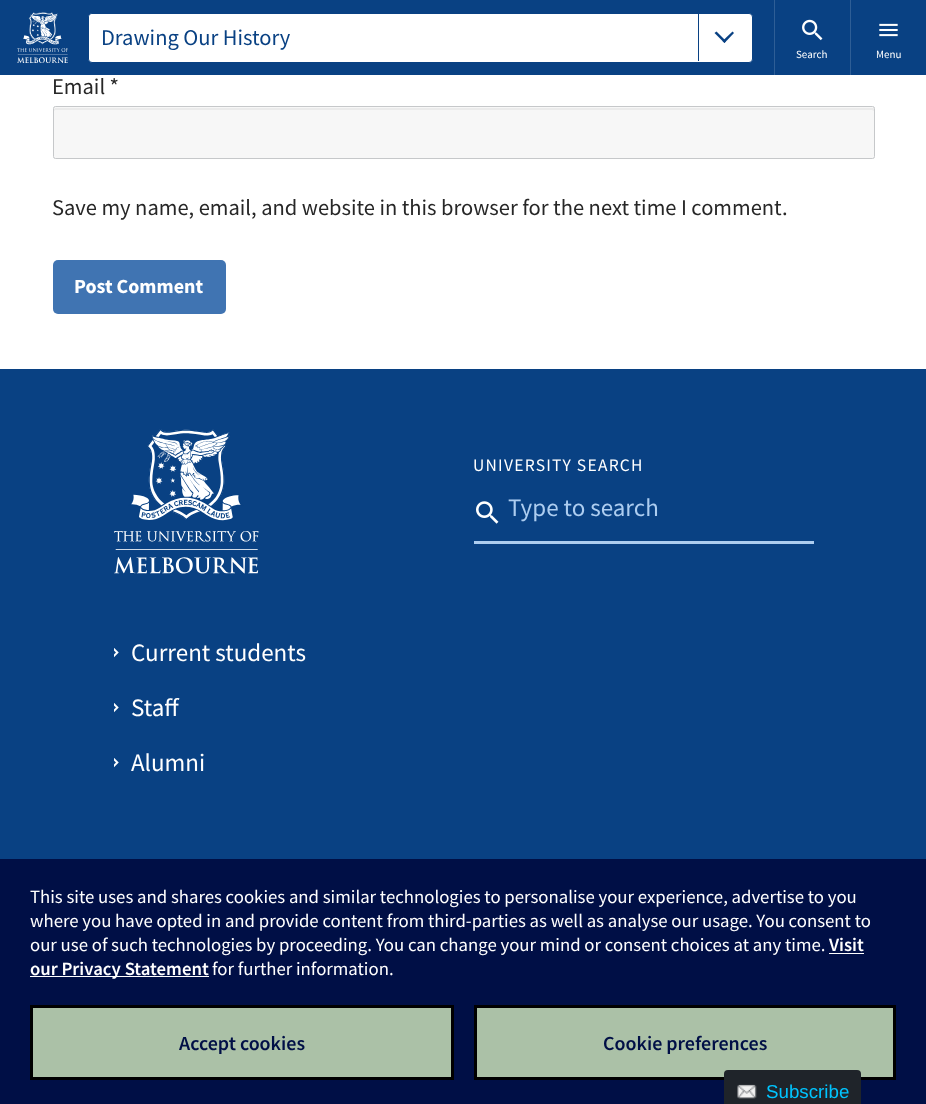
<?xml version="1.0" encoding="UTF-8"?>
<svg xmlns="http://www.w3.org/2000/svg" width="926" height="1104">
    <rect width="100%" height="100%" fill="#FFFFFF"/>
    <rect x="0" y="0" width="926" height="75" fill="#094183"/>
    <image x="17" y="12" width="51" height="51" href="img_01.png"/>
    <rect x="88.5" y="13.5" width="664" height="49" rx="3.5" fill="#FFFFFF" stroke="#094183"/>
    <rect x="89" y="14" width="662" height="47" rx="4" fill="#FFFFFF"/>
    <text x="101" y="45" font-family="Source Sans Pro" font-size="22.5" fill="#094183">Drawing Our History</text>
    <rect x="698" y="14" width="1" height="47" fill="#094183"/>
    <path d="M 732.5 31.5 L 734 33 L 724.5 43 L 722.5 41 Z" fill="#094183"/>
    <path d="M 716.5 31.5 L 726 41 L 724.5 43 L 714.5 33 Z" fill="#094183"/>
    <rect x="774" y="0" width="1" height="75" fill="#2E5E96"/>
    <image x="802" y="19" width="21" height="22" href="img_02.png"/>
    <text x="796" y="58" font-family="Source Sans Pro" font-size="11" fill="#FFFFFF">Search</text>
    <rect x="850" y="0" width="1" height="75" fill="#2E5E96"/>
    <image x="879" y="23" width="19" height="14" href="img_03.png"/>
    <text x="876" y="58" font-family="Source Sans Pro" font-size="11" fill="#FFFFFF">Menu</text>
    <text x="52" y="94" font-family="Source Sans Pro" font-size="22.5" fill="#272727">Email *</text>
    <rect x="53" y="106" width="822" height="53" rx="2.5" fill="#F7F7F7"/>
    <path d="M 55 110 H 872 L 874 111 V 108 H 55 L 54 109 V 111 Z" fill="#EBEBEB"/>
    <rect x="53.5" y="106.5" width="821" height="52" rx="2" fill="none" stroke="#C6C8CA"/>
    <text x="52" y="215" font-family="Source Sans Pro" font-size="22.5" fill="#272727">Save my name, email, and website in this browser for the next time I comment.</text>
    <rect x="53" y="260" width="173" height="54" rx="5" fill="#4074B2"/>
    <text x="74" y="293" font-family="Source Sans Pro" font-size="20" font-weight="700" fill="#FFFFFF">Post Comment</text>
    <rect x="0" y="369" width="926" height="490" fill="#094183"/>
    <image x="114" y="429" width="145" height="145" href="img_04.png"/>
    <text x="473" y="471" font-family="Source Sans Pro" font-size="17.5" letter-spacing="1.25" fill="#FFFFFF">UNIVERSITY SEARCH</text>
    <image x="476" y="501" width="23" height="23" href="img_05.png"/>
    <rect x="474" y="541" width="340" height="3" fill="#ADCDF0"/>
    <text x="508" y="516" font-family="Source Sans Pro" font-size="25" fill="#ADCDF0">Type to search</text>
    <image x="114" y="648" width="5" height="10" href="img_06.png"/>
    <text x="131" y="661" font-family="Source Sans Pro" font-size="25" fill="#FFFFFF">Current students</text>
    <image x="114" y="703" width="5" height="10" href="img_06.png"/>
    <text x="131" y="716" font-family="Source Sans Pro" font-size="25" fill="#FFFFFF">Staff</text>
    <image x="114" y="758" width="5" height="10" href="img_06.png"/>
    <text x="131" y="771" font-family="Source Sans Pro" font-size="25" fill="#FFFFFF">Alumni</text>
    <rect x="0" y="859" width="926" height="245" fill="#000F46"/>
    <text font-family="Source Sans Pro" font-size="18.75" fill="#FFFFFF">
        <tspan x="30" y="903">This site uses and shares cookies and similar technologies to personalise your experience, advertise to you</tspan>
        <tspan x="30" y="927">where you have opted in and provide content from third-parties as well as analyse our usage. You consent to</tspan>
        <tspan x="30" y="951">our use of such technologies by proceeding. You can change your mind or consent choices at any time.</tspan>
    </text>
    <text x="829" y="951" font-family="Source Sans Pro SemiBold" font-size="18.75" font-weight="600" fill="#FFFFFF">Visit</text>
    <rect x="829" y="953" width="35" height="1" fill="#FFFFFF"/>
    <rect x="30" y="976" width="179" height="1" fill="#FFFFFF"/>
    <text x="30" y="975" font-family="Source Sans Pro SemiBold" font-size="18.75" font-weight="600" fill="#FFFFFF">our Privacy Statement</text>
    <text x="212" y="975" font-family="Source Sans Pro" font-size="18.75" fill="#FFFFFF">for further information.</text>
    <rect x="31.5" y="1006.5" width="421" height="72" fill="#ABC1A7" stroke="#000000" stroke-width="3"/>
    <text x="179" y="1050" font-family="Source Sans Pro SemiBold" font-size="20" font-weight="600" fill="#000F46">Accept cookies</text>
    <rect x="475.5" y="1006.5" width="419" height="72" fill="#ABC1A7" stroke="#000000" stroke-width="3"/>
    <text x="603" y="1050" font-family="Source Sans Pro SemiBold" font-size="20" font-weight="600" fill="#000F46">Cookie preferences</text>
    <rect x="724" y="1070" width="137" height="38" rx="4" fill="#1F242A"/>
    <image x="737" y="1084" width="20" height="15" href="img_07.png"/>
    <text x="766" y="1098" font-family="Liberation Sans" font-size="18.75" fill="#00C5FF">Subscribe</text>
</svg>
